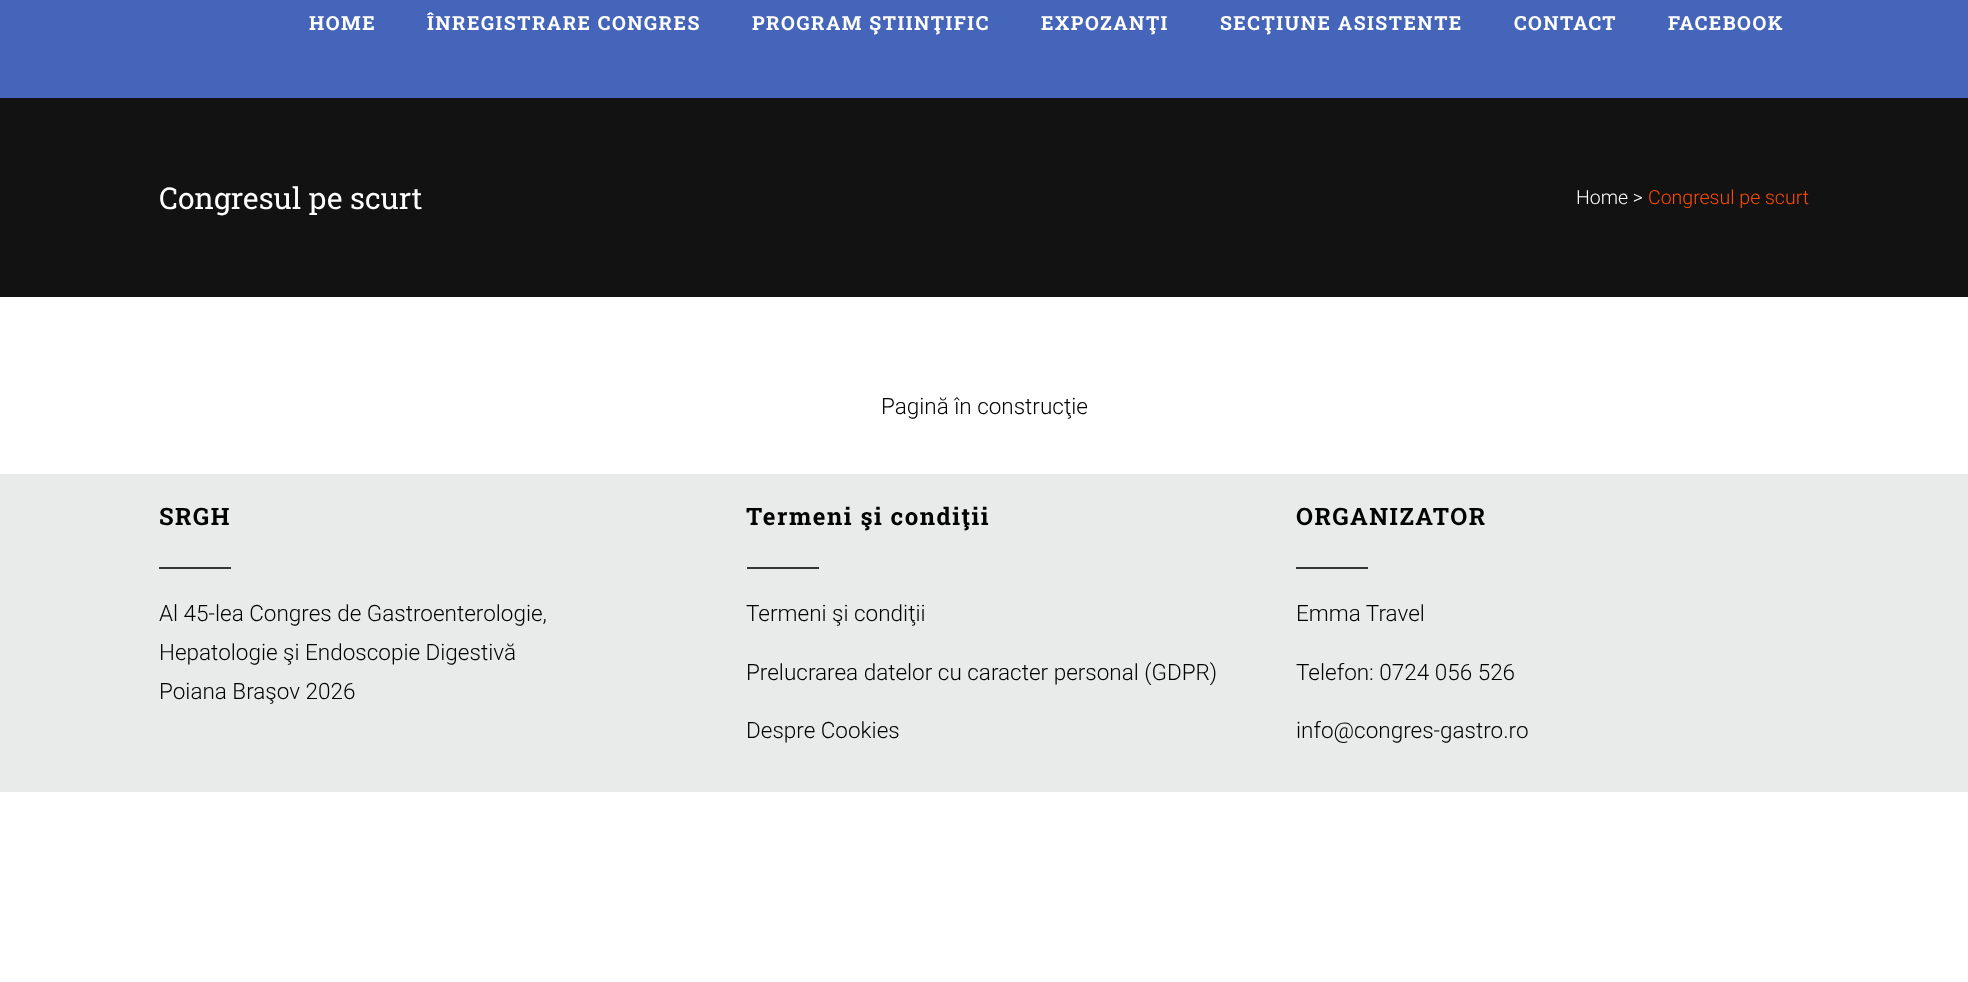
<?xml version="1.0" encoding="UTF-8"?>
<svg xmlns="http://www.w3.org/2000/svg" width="1968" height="982">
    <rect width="100%" height="100%" fill="#FFFFFF"/>
    <rect x="0" y="0" width="1968" height="98" fill="#4565BA"/>
    <text x="309" y="30" font-family="Roboto Slab" font-size="19.5" font-weight="700" letter-spacing="1.5" fill="#FFFFFF">HOME</text>
    <text x="427" y="30" font-family="Roboto Slab" font-size="19.5" font-weight="700" letter-spacing="1.5" fill="#FFFFFF">ÎNREGISTRARE CONGRES</text>
    <text x="752" y="30" font-family="Roboto Slab" font-size="19.5" font-weight="700" letter-spacing="1.5" fill="#FFFFFF">PROGRAM ŞTIINŢIFIC</text>
    <text x="1041" y="30" font-family="Roboto Slab" font-size="19.5" font-weight="700" letter-spacing="1.5" fill="#FFFFFF">EXPOZANŢI</text>
    <text x="1220" y="30" font-family="Roboto Slab" font-size="19.5" font-weight="700" letter-spacing="1.5" fill="#FFFFFF">SECŢIUNE ASISTENTE</text>
    <text x="1514" y="30" font-family="Roboto Slab" font-size="19.5" font-weight="700" letter-spacing="1.5" fill="#FFFFFF">CONTACT</text>
    <text x="1668" y="30" font-family="Roboto Slab" font-size="19.5" font-weight="700" letter-spacing="1.5" fill="#FFFFFF">FACEBOOK</text>
    <rect x="0" y="98" width="1968" height="199" fill="#121212"/>
    <text x="159" y="209" font-family="Roboto Slab" font-size="30" fill="#FFFFFF">Congresul pe scurt</text>
    <text x="1576" y="204" font-family="Roboto" font-size="19.5" font-weight="300" fill="#FFFFFF">Home &gt;</text>
    <text x="1648" y="204" font-family="Roboto" font-size="19.5" font-weight="300" fill="#FF4C00">Congresul pe scurt</text>
    <text x="881" y="414" font-family="Roboto" font-size="22.5" font-weight="300" fill="#000000">Pagină în construcţie</text>
    <rect x="0" y="474" width="1968" height="318" fill="#E9EAEA"/>
    <text x="159" y="525" font-family="Roboto Slab" font-size="24" font-weight="700" letter-spacing="1.5" fill="#000000">SRGH</text>
    <rect x="159" y="567" width="72" height="2" fill="#363636"/>
    <text font-family="Roboto" font-size="22.5" font-weight="300" fill="#000000">
        <tspan x="159" y="621">Al 45-lea Congres de Gastroenterologie,</tspan>
        <tspan x="159" y="660">Hepatologie şi Endoscopie Digestivă</tspan>
        <tspan x="159" y="699">Poiana Braşov 2026</tspan>
    </text>
    <text x="746" y="525" font-family="Roboto Slab" font-size="24" font-weight="700" letter-spacing="1.5" fill="#000000">Termeni şi condiţii</text>
    <rect x="747" y="567" width="72" height="2" fill="#363636"/>
    <text x="746" y="621" font-family="Roboto" font-size="22.5" font-weight="300" fill="#000000">Termeni şi condiţii</text>
    <text x="746" y="680" font-family="Roboto" font-size="22.5" font-weight="300" fill="#000000">Prelucrarea datelor cu caracter personal (GDPR)</text>
    <text x="746" y="738" font-family="Roboto" font-size="22.5" font-weight="300" fill="#000000">Despre Cookies</text>
    <text x="1296" y="525" font-family="Roboto Slab" font-size="24" font-weight="700" letter-spacing="1.5" fill="#000000">ORGANIZATOR</text>
    <rect x="1296" y="567" width="72" height="2" fill="#363636"/>
    <text x="1296" y="621" font-family="Roboto" font-size="22.5" font-weight="300" fill="#000000">Emma Travel</text>
    <text x="1296" y="680" font-family="Roboto" font-size="22.5" font-weight="300" fill="#000000">Telefon: 0724 056 526</text>
    <text x="1296" y="738" font-family="Roboto" font-size="22.5" font-weight="300" fill="#000000">info@congres-gastro.ro</text>
</svg>
